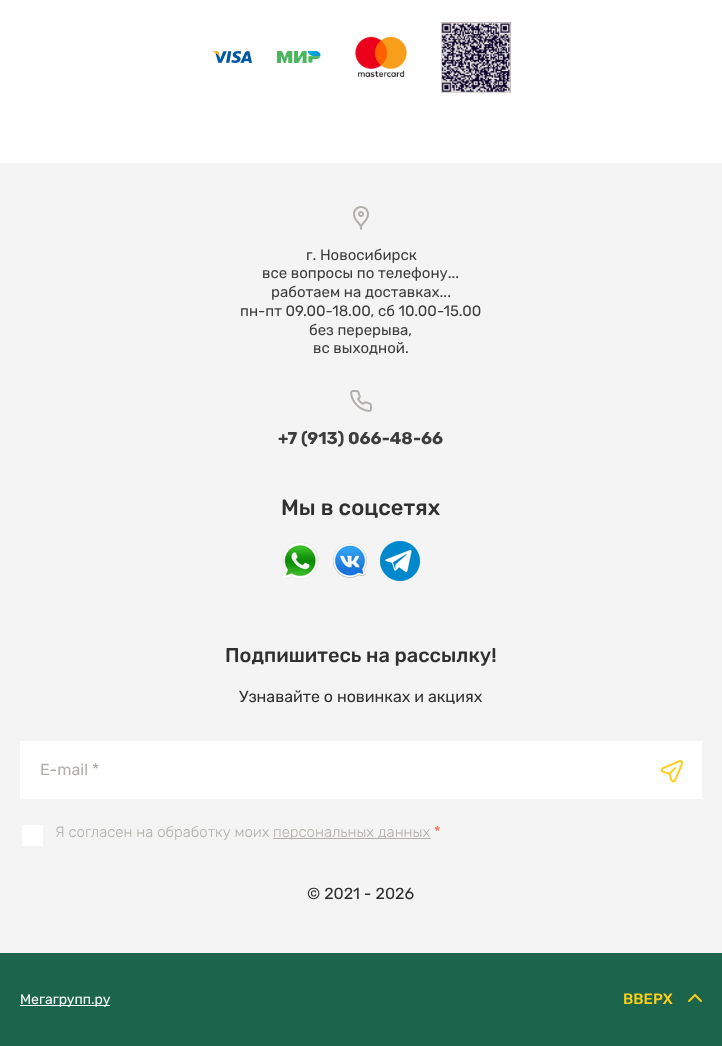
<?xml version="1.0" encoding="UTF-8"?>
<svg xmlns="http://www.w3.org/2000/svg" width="722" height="1046">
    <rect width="100%" height="100%" fill="#FFFFFF"/>
    <image x="212" y="51" width="40" height="12" href="img_01.png"/>
    <image x="277" y="51" width="44" height="12" href="img_02.png"/>
    <image x="355" y="36" width="52" height="42" href="img_03.png"/>
    <image x="441" y="22" width="70" height="71" href="img_04.png"/>
    <rect x="0" y="163" width="722" height="790" fill="#F4F4F4"/>
    <image x="353" y="206" width="16" height="24" href="img_05.png"/>
    <text x="306" y="260" font-family="Rubik" font-size="15" fill="#3D3D3D">г. Новосибирск</text>
    <text x="262" y="278" font-family="Rubik" font-size="15" fill="#3D3D3D">все вопросы по телефону...</text>
    <text x="271" y="297" font-family="Rubik" font-size="15" fill="#3D3D3D">работаем на доставках...</text>
    <text x="240" y="316" font-family="Rubik" font-size="15" fill="#3D3D3D">пн-пт 09.00-18.00, сб 10.00-15.00</text>
    <text x="309" y="335" font-family="Rubik" font-size="15" fill="#3D3D3D">без перерыва,</text>
    <text x="313" y="353" font-family="Rubik" font-size="15" fill="#3D3D3D">вс выходной.</text>
    <image x="350" y="390" width="22" height="22" href="img_06.png"/>
    <text x="278" y="444" font-family="Rubik" font-size="17" font-weight="700" fill="#3D3D3D">+7 (913) 066-48-66</text>
    <text x="281" y="515" font-family="Rubik" font-size="22" font-weight="500" fill="#303030">Мы в соцсетях</text>
    <image x="282" y="542" width="37" height="37" href="img_07.png"/>
    <image x="333" y="543" width="34" height="35" href="img_08.png"/>
    <image x="380" y="541" width="40" height="40" href="img_09.png"/>
    <text x="225" y="662" font-family="Rubik" font-size="20" font-weight="500" fill="#303030">Подпишитесь на рассылку!</text>
    <text x="239" y="702" font-family="Rubik" font-size="16" fill="#303030">Узнавайте о новинках и акциях</text>
    <rect x="20" y="741" width="682" height="58" fill="#FFFFFF"/>
    <text x="40" y="775" font-family="Rubik" font-size="16" fill="#B1AFAA">E-mail *</text>
    <image x="660" y="760" width="24" height="23" href="img_10.png"/>
    <rect x="22" y="825" width="21" height="21" fill="#FFFFFF"/>
    <text x="55" y="837" font-family="Rubik" font-size="15" font-weight="300" fill="#B1AFAA">Я согласен на обработку моих</text>
    <text x="434" y="837" font-family="Rubik" font-size="15" font-weight="300" fill="#FF5640">*</text>
    <rect x="273" y="838" width="158" height="1" fill="#B1AFAA"/>
    <text x="273" y="837" font-family="Rubik" font-size="15" font-weight="300" fill="#B1AFAA">персональных данных</text>
    <text x="307" y="899" font-family="Rubik" font-size="16" fill="#303030">© 2021 - 2026</text>
    <rect x="0" y="953" width="722" height="93" fill="#1A654B"/>
    <rect x="20" y="1005" width="90" height="1" fill="#FFFFFF"/>
    <text x="20" y="1004" font-family="Rubik" font-size="14" fill="#FFFFFF">Мегагрупп.ру</text>
    <text x="623" y="1004" font-family="Rubik" font-size="15" font-weight="500" fill="#FFCD1C">ВВЕРХ</text>
    <image x="688" y="993" width="14" height="9" href="img_11.png"/>
</svg>
